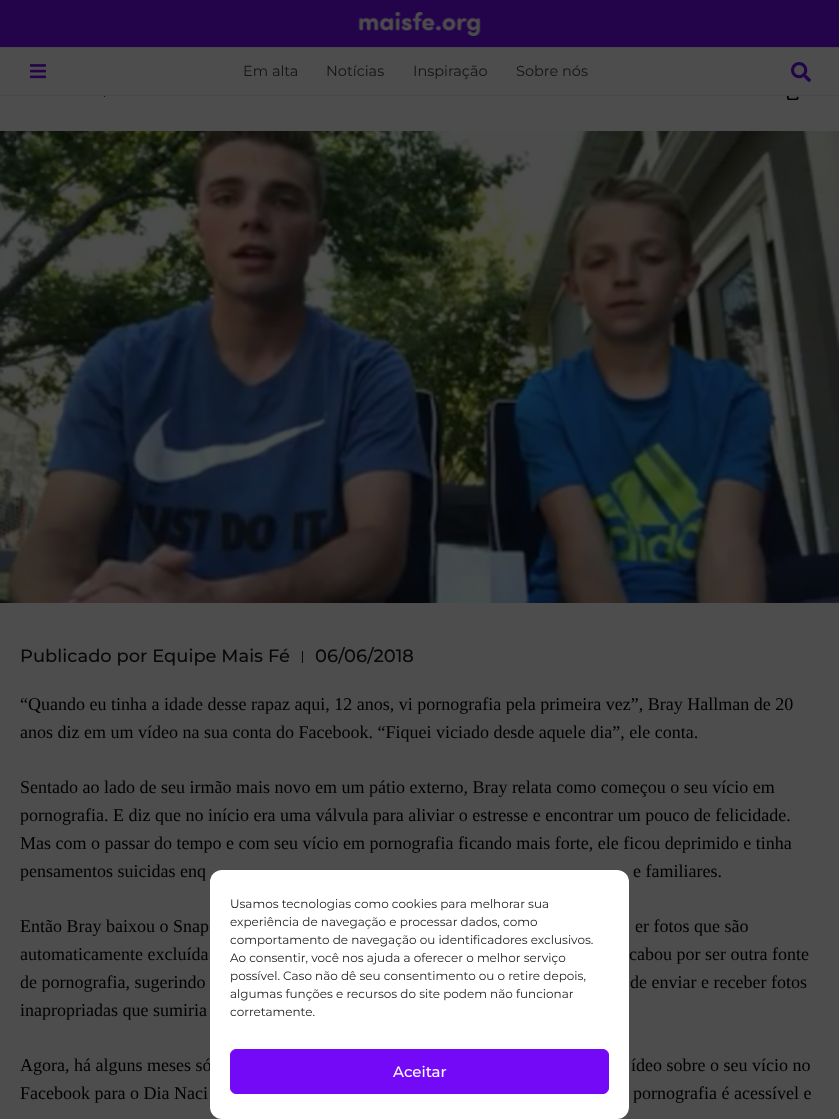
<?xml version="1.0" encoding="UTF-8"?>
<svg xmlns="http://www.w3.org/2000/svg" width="839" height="1119">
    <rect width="100%" height="100%" fill="#4D4D4D"/>
    <rect x="0" y="0" width="839" height="47" fill="#23034A"/>
    <rect x="0" y="47" width="839" height="1" fill="#474747"/>
    <image x="358" y="12" width="123" height="24" href="img_01.png"/>
    <rect x="0" y="95" width="839" height="1" fill="#474747"/>
    <image x="30" y="64" width="16" height="15" href="img_02.png"/>
    <text x="243" y="76" font-family="Montserrat" font-size="14.5" fill="#141414">Em alta</text>
    <text x="326" y="76" font-family="Montserrat" font-size="14.5" fill="#141414">Notícias</text>
    <text x="413" y="76" font-family="Montserrat" font-size="14.5" fill="#141414">Inspiração</text>
    <text x="516" y="76" font-family="Montserrat" font-size="14.5" fill="#141414">Sobre nós</text>
    <image x="791" y="62" width="20" height="20" href="img_03.png"/>
    <rect x="104" y="96" width="1" height="1" fill="#141414"/>
    <image x="787" y="96" width="12" height="4" href="img_04.png"/>
    <image x="0" y="131" width="839" height="472" href="img_05.png"/>
    <text x="20" y="662" font-family="Montserrat" font-size="17.9" font-weight="500" fill="#080808">Publicado por Equipe Mais Fé</text>
    <rect x="302" y="651" width="1" height="12" fill="#080808"/>
    <text x="315" y="662" font-family="Montserrat" font-size="17.9" font-weight="500" fill="#080808">06/06/2018</text>
    <text font-family="Liberation Serif" font-size="18" fill="#000000">
        <tspan x="20" y="710">“Quando eu tinha a idade desse rapaz aqui, 12 anos, vi pornografia pela primeira vez”, Bray Hallman de 20</tspan>
        <tspan x="20" y="738">anos diz em um vídeo na sua conta do Facebook. “Fiquei viciado desde aquele dia”, ele conta.</tspan>
    </text>
    <text font-family="Liberation Serif" font-size="18" fill="#000000">
        <tspan x="20" y="793">Sentado ao lado de seu irmão mais novo em um pátio externo, Bray relata como começou o seu vício em</tspan>
        <tspan x="20" y="821">pornografia. E diz que no início era uma válvula para aliviar o estresse e encontrar um pouco de felicidade.</tspan>
        <tspan x="20" y="849">Mas com o passar do tempo e com seu vício em pornografia ficando mais forte, ele ficou deprimido e tinha</tspan>
        <tspan x="20" y="877">pensamentos suicidas enq</tspan>
    </text>
    <text x="633" y="877" font-family="Liberation Serif" font-size="18" fill="#000000">e familiares.</text>
    <text x="20" y="932" font-family="Liberation Serif" font-size="18" fill="#000000">Então Bray baixou o Snap</text>
    <text x="635" y="932" font-family="Liberation Serif" font-size="18" fill="#000000">er fotos que são</text>
    <text x="20" y="960" font-family="Liberation Serif" font-size="18" fill="#000000">automaticamente excluída</text>
    <text x="629" y="960" font-family="Liberation Serif" font-size="18" fill="#000000">cabou por ser outra fonte</text>
    <text x="20" y="988" font-family="Liberation Serif" font-size="18" fill="#000000">de pornografia, sugerindo</text>
    <text x="630" y="988" font-family="Liberation Serif" font-size="18" fill="#000000">de enviar e receber fotos</text>
    <text x="20" y="1016" font-family="Liberation Serif" font-size="18" fill="#000000">inapropriadas que sumiria</text>
    <text x="20" y="1071" font-family="Liberation Serif" font-size="18" fill="#000000">Agora, há alguns meses só</text>
    <text x="631" y="1071" font-family="Liberation Serif" font-size="18" fill="#000000">ídeo sobre o seu vício no</text>
    <text x="20" y="1099" font-family="Liberation Serif" font-size="18" fill="#000000">Facebook para o Dia Naci</text>
    <text x="633" y="1099" font-family="Liberation Serif" font-size="18" fill="#000000">pornografia é acessível e</text>
    <rect x="210" y="870" width="419" height="249" rx="12" fill="#FFFFFF"/>
    <text font-family="Montserrat" font-size="12" fill="#222222">
        <tspan x="230" y="908">Usamos tecnologias como cookies para melhorar sua</tspan>
        <tspan x="230" y="926">experiência de navegação e processar dados, como</tspan>
        <tspan x="230" y="944">comportamento de navegação ou identificadores exclusivos.</tspan>
        <tspan x="230" y="962">Ao consentir, você nos ajuda a oferecer o melhor serviço</tspan>
        <tspan x="230" y="980">possível. Caso não dê seu consentimento ou o retire depois,</tspan>
        <tspan x="230" y="998">algumas funções e recursos do site podem não funcionar</tspan>
        <tspan x="230" y="1016">corretamente.</tspan>
    </text>
    <rect x="230.5" y="1049.5" width="378" height="44" rx="5.5" fill="#7409F7" stroke="#7409F7"/>
    <text x="393" y="1077" font-family="Montserrat" font-size="15" font-weight="500" fill="#FFFFFF">Aceitar</text>
</svg>
